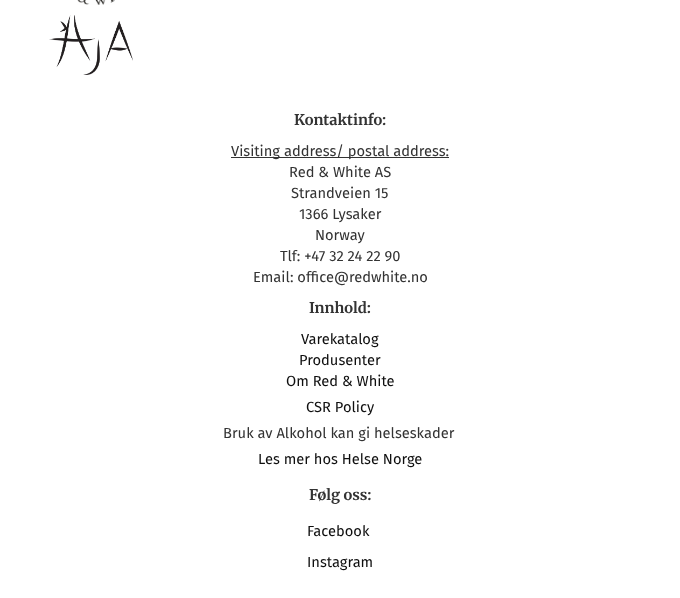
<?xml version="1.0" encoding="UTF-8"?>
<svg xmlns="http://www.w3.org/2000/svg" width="680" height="598">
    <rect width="100%" height="100%" fill="#FFFFFF"/>
    <image x="77" y="0" width="38" height="5" href="img_01.png"/>
    <image x="49" y="15" width="84" height="60" href="img_02.png"/>
    <text x="294" y="125" font-family="Merriweather" font-size="14.7" font-weight="700" fill="#333333">Kontaktinfo:</text>
    <rect x="231" y="157" width="218" height="1" fill="#333333"/>
    <text x="231" y="156" font-family="Fira Sans" font-size="14.7" fill="#333333">Visiting address/ postal address:</text>
    <text x="289" y="177" font-family="Fira Sans" font-size="14.7" fill="#333333">Red &amp; White AS</text>
    <text x="291" y="198" font-family="Fira Sans" font-size="14.7" fill="#333333">Strandveien 15</text>
    <text x="299" y="219" font-family="Fira Sans" font-size="14.7" fill="#333333">1366 Lysaker</text>
    <text x="315" y="240" font-family="Fira Sans" font-size="14.7" fill="#333333">Norway</text>
    <text x="280" y="261" font-family="Fira Sans" font-size="14.7" fill="#333333">Tlf: +47 32 24 22 90</text>
    <text x="253" y="282" font-family="Fira Sans" font-size="14.7" fill="#333333">Email: office@redwhite.no</text>
    <text x="309" y="313" font-family="Merriweather" font-size="14.7" font-weight="700" fill="#333333">Innhold:</text>
    <text x="301" y="344" font-family="Fira Sans" font-size="14.7" fill="#0F0F0F">Varekatalog</text>
    <text x="299" y="365" font-family="Fira Sans" font-size="14.7" fill="#0F0F0F">Produsenter</text>
    <text x="286" y="386" font-family="Fira Sans" font-size="14.7" fill="#0F0F0F">Om Red &amp; White</text>
    <text x="306" y="412" font-family="Fira Sans" font-size="14.7" fill="#0F0F0F">CSR Policy</text>
    <text x="223" y="438" font-family="Fira Sans" font-size="14.7" fill="#333333">Bruk av Alkohol kan gi helseskader</text>
    <text x="258" y="464" font-family="Fira Sans" font-size="14.7" fill="#0F0F0F">Les mer hos Helse Norge</text>
    <text x="309" y="500" font-family="Merriweather" font-size="14.7" font-weight="700" fill="#333333">Følg oss:</text>
    <text x="307" y="536" font-family="Fira Sans" font-size="14.7" fill="#0F0F0F">Facebook</text>
    <text x="307" y="567" font-family="Fira Sans" font-size="14.7" fill="#0F0F0F">Instagram</text>
</svg>
